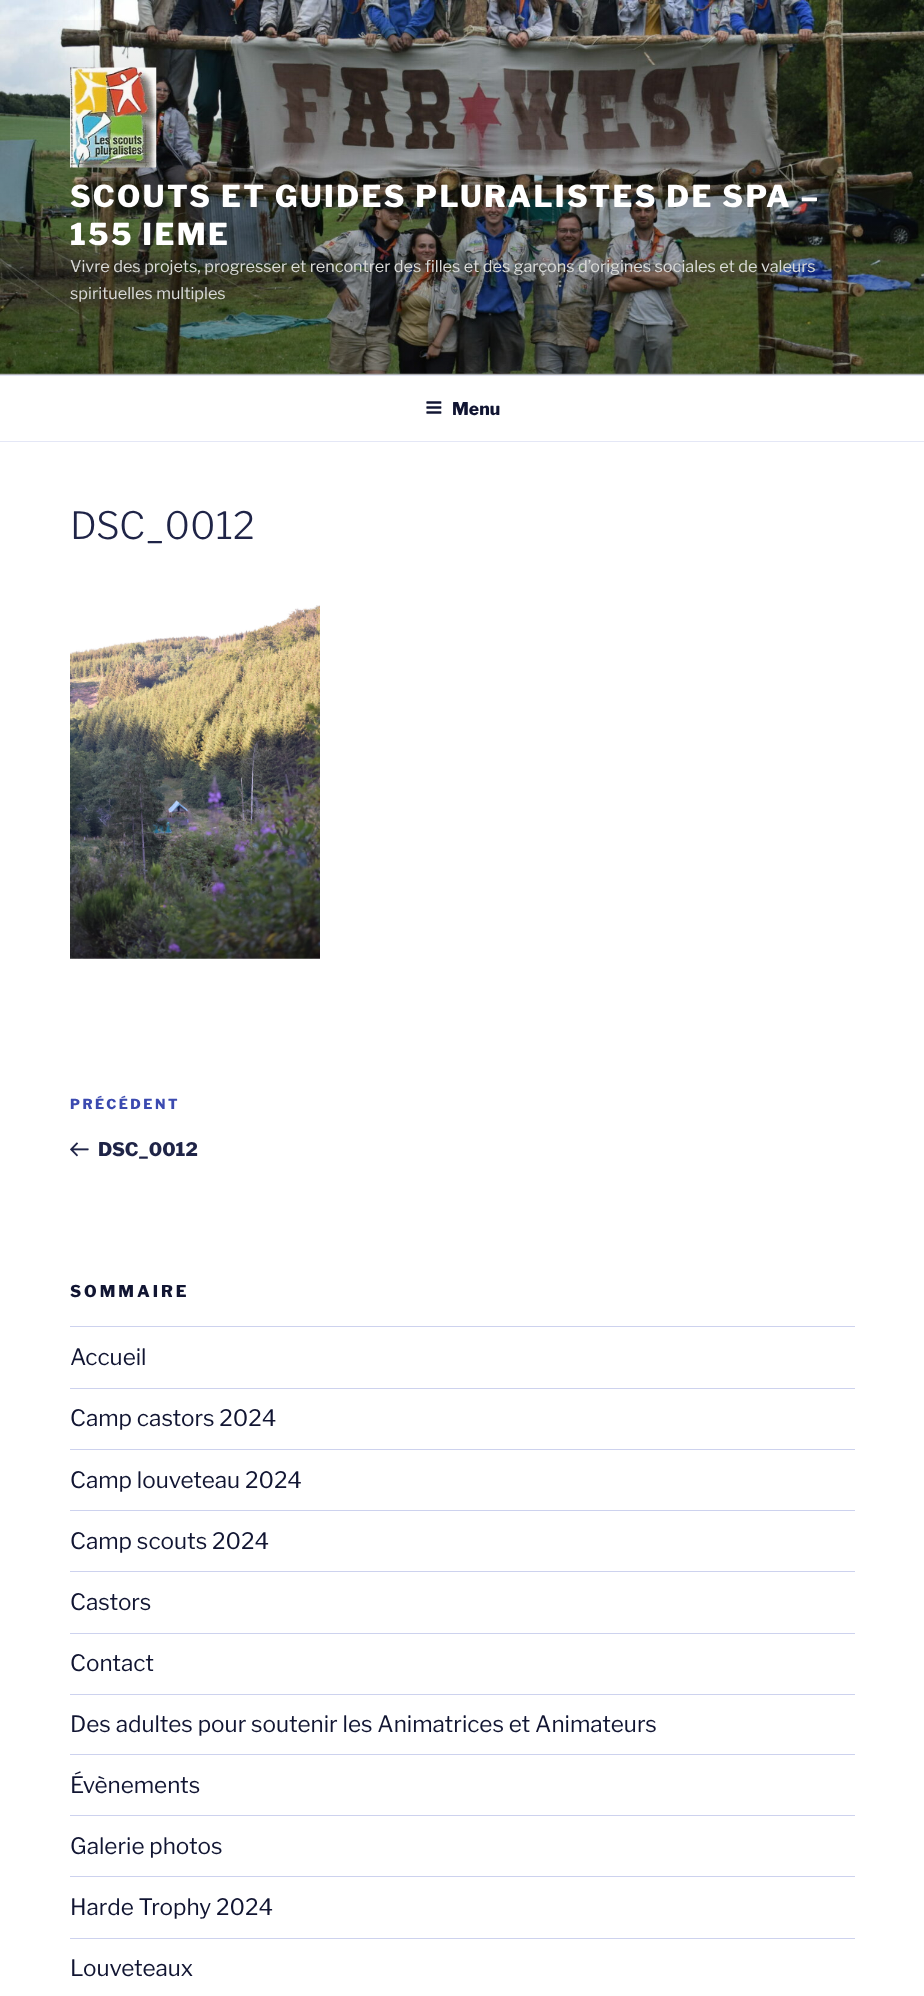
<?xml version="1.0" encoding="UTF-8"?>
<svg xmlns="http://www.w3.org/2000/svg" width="924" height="1996">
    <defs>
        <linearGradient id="g1" gradientUnits="userSpaceOnUse" x1="463" y1="0" x2="463" y2="375"><stop offset="0" stop-color="#000000" stop-opacity="0"/><stop offset="0.75" stop-color="#000000" stop-opacity="0.3"/><stop offset="1" stop-color="#000000" stop-opacity="0.3"/></linearGradient>
    </defs>
    <rect width="100%" height="100%" fill="#FFFFFF"/>
    <rect x="0" y="373" width="924" height="2" fill="#F7F8FC"/>
    <image x="0" y="0" width="924" height="374" href="img_01.png"/>
    <rect x="0" y="20" width="924" height="355" fill="url(#g1)"/>
    <image x="70" y="67" width="87" height="101" href="img_02.png"/>
    <text font-family="Libre Franklin" font-size="30" font-weight="100" letter-spacing="2.4" fill="#FFFFFF">
        <tspan x="70" y="207">SCOUTS ET GUIDES PLURALISTES DE SPA –</tspan>
        <tspan x="70" y="245">155 IEME</tspan>
    </text>
    <text font-family="'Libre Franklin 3'" font-size="16.25" font-weight="100" fill="#DADBD9">
        <tspan x="70" y="272">Vivre des projets, progresser et rencontrer des filles et des garçons d’origines sociales et de valeurs</tspan>
        <tspan x="70" y="299">spirituelles multiples</tspan>
    </text>
    <rect x="0" y="375" width="924" height="1" fill="#E4E7F6"/>
    <rect x="0" y="441" width="924" height="1" fill="#E4E7F6"/>
    <image x="426" y="401" width="16" height="13" href="img_03.png"/>
    <text x="452" y="415" font-family="Libre Franklin" font-size="17.5" font-weight="100" fill="#111532">Menu</text>
    <text x="70" y="539" font-family="'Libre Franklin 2'" font-size="37.5" font-weight="100" fill="#1F2447">DSC_0012</text>
    <image x="70" y="605" width="250" height="354" href="img_04.png"/>
    <text x="70" y="1109" font-family="Libre Franklin" font-size="13.75" font-weight="100" letter-spacing="2.5" fill="#3B4AB0">PRÉCÉDENT</text>
    <image x="70" y="1142" width="19" height="15" href="img_05.png"/>
    <text x="98" y="1156" font-family="Libre Franklin" font-size="18.75" font-weight="100" fill="#1F2447">DSC_0012</text>
    <text x="70" y="1297" font-family="Libre Franklin" font-size="16.25" font-weight="100" letter-spacing="3" fill="#111532">SOMMAIRE</text>
    <rect x="70" y="1326" width="785" height="1" fill="#CDD2EE"/>
    <rect x="70" y="1388" width="785" height="1" fill="#CDD2EE"/>
    <text x="70" y="1365" font-family="'Libre Franklin 3'" font-size="22.5" font-weight="100" fill="#111532">Accueil</text>
    <rect x="70" y="1449" width="785" height="1" fill="#CDD2EE"/>
    <text x="70" y="1426" font-family="'Libre Franklin 3'" font-size="22.5" font-weight="100" fill="#111532">Camp castors 2024</text>
    <rect x="70" y="1510" width="785" height="1" fill="#CDD2EE"/>
    <text x="70" y="1488" font-family="'Libre Franklin 3'" font-size="22.5" font-weight="100" fill="#111532">Camp louveteau 2024</text>
    <rect x="70" y="1571" width="785" height="1" fill="#CDD2EE"/>
    <text x="70" y="1549" font-family="'Libre Franklin 3'" font-size="22.5" font-weight="100" fill="#111532">Camp scouts 2024</text>
    <rect x="70" y="1633" width="785" height="1" fill="#CDD2EE"/>
    <text x="70" y="1610" font-family="'Libre Franklin 3'" font-size="22.5" font-weight="100" fill="#111532">Castors</text>
    <rect x="70" y="1694" width="785" height="1" fill="#CDD2EE"/>
    <text x="70" y="1671" font-family="'Libre Franklin 3'" font-size="22.5" font-weight="100" fill="#111532">Contact</text>
    <rect x="70" y="1754" width="785" height="1" fill="#CDD2EE"/>
    <text x="70" y="1732" font-family="'Libre Franklin 3'" font-size="22.5" font-weight="100" fill="#111532">Des adultes pour soutenir les Animatrices et Animateurs</text>
    <rect x="70" y="1815" width="785" height="1" fill="#CDD2EE"/>
    <text x="70" y="1793" font-family="'Libre Franklin 3'" font-size="22.5" font-weight="100" fill="#111532">Évènements</text>
    <rect x="70" y="1876" width="785" height="1" fill="#CDD2EE"/>
    <text x="70" y="1854" font-family="'Libre Franklin 3'" font-size="22.5" font-weight="100" fill="#111532">Galerie photos</text>
    <rect x="70" y="1938" width="785" height="1" fill="#CDD2EE"/>
    <text x="70" y="1915" font-family="'Libre Franklin 3'" font-size="22.5" font-weight="100" fill="#111532">Harde Trophy 2024</text>
    <text x="70" y="1976" font-family="'Libre Franklin 3'" font-size="22.5" font-weight="100" fill="#111532">Louveteaux</text>
</svg>
